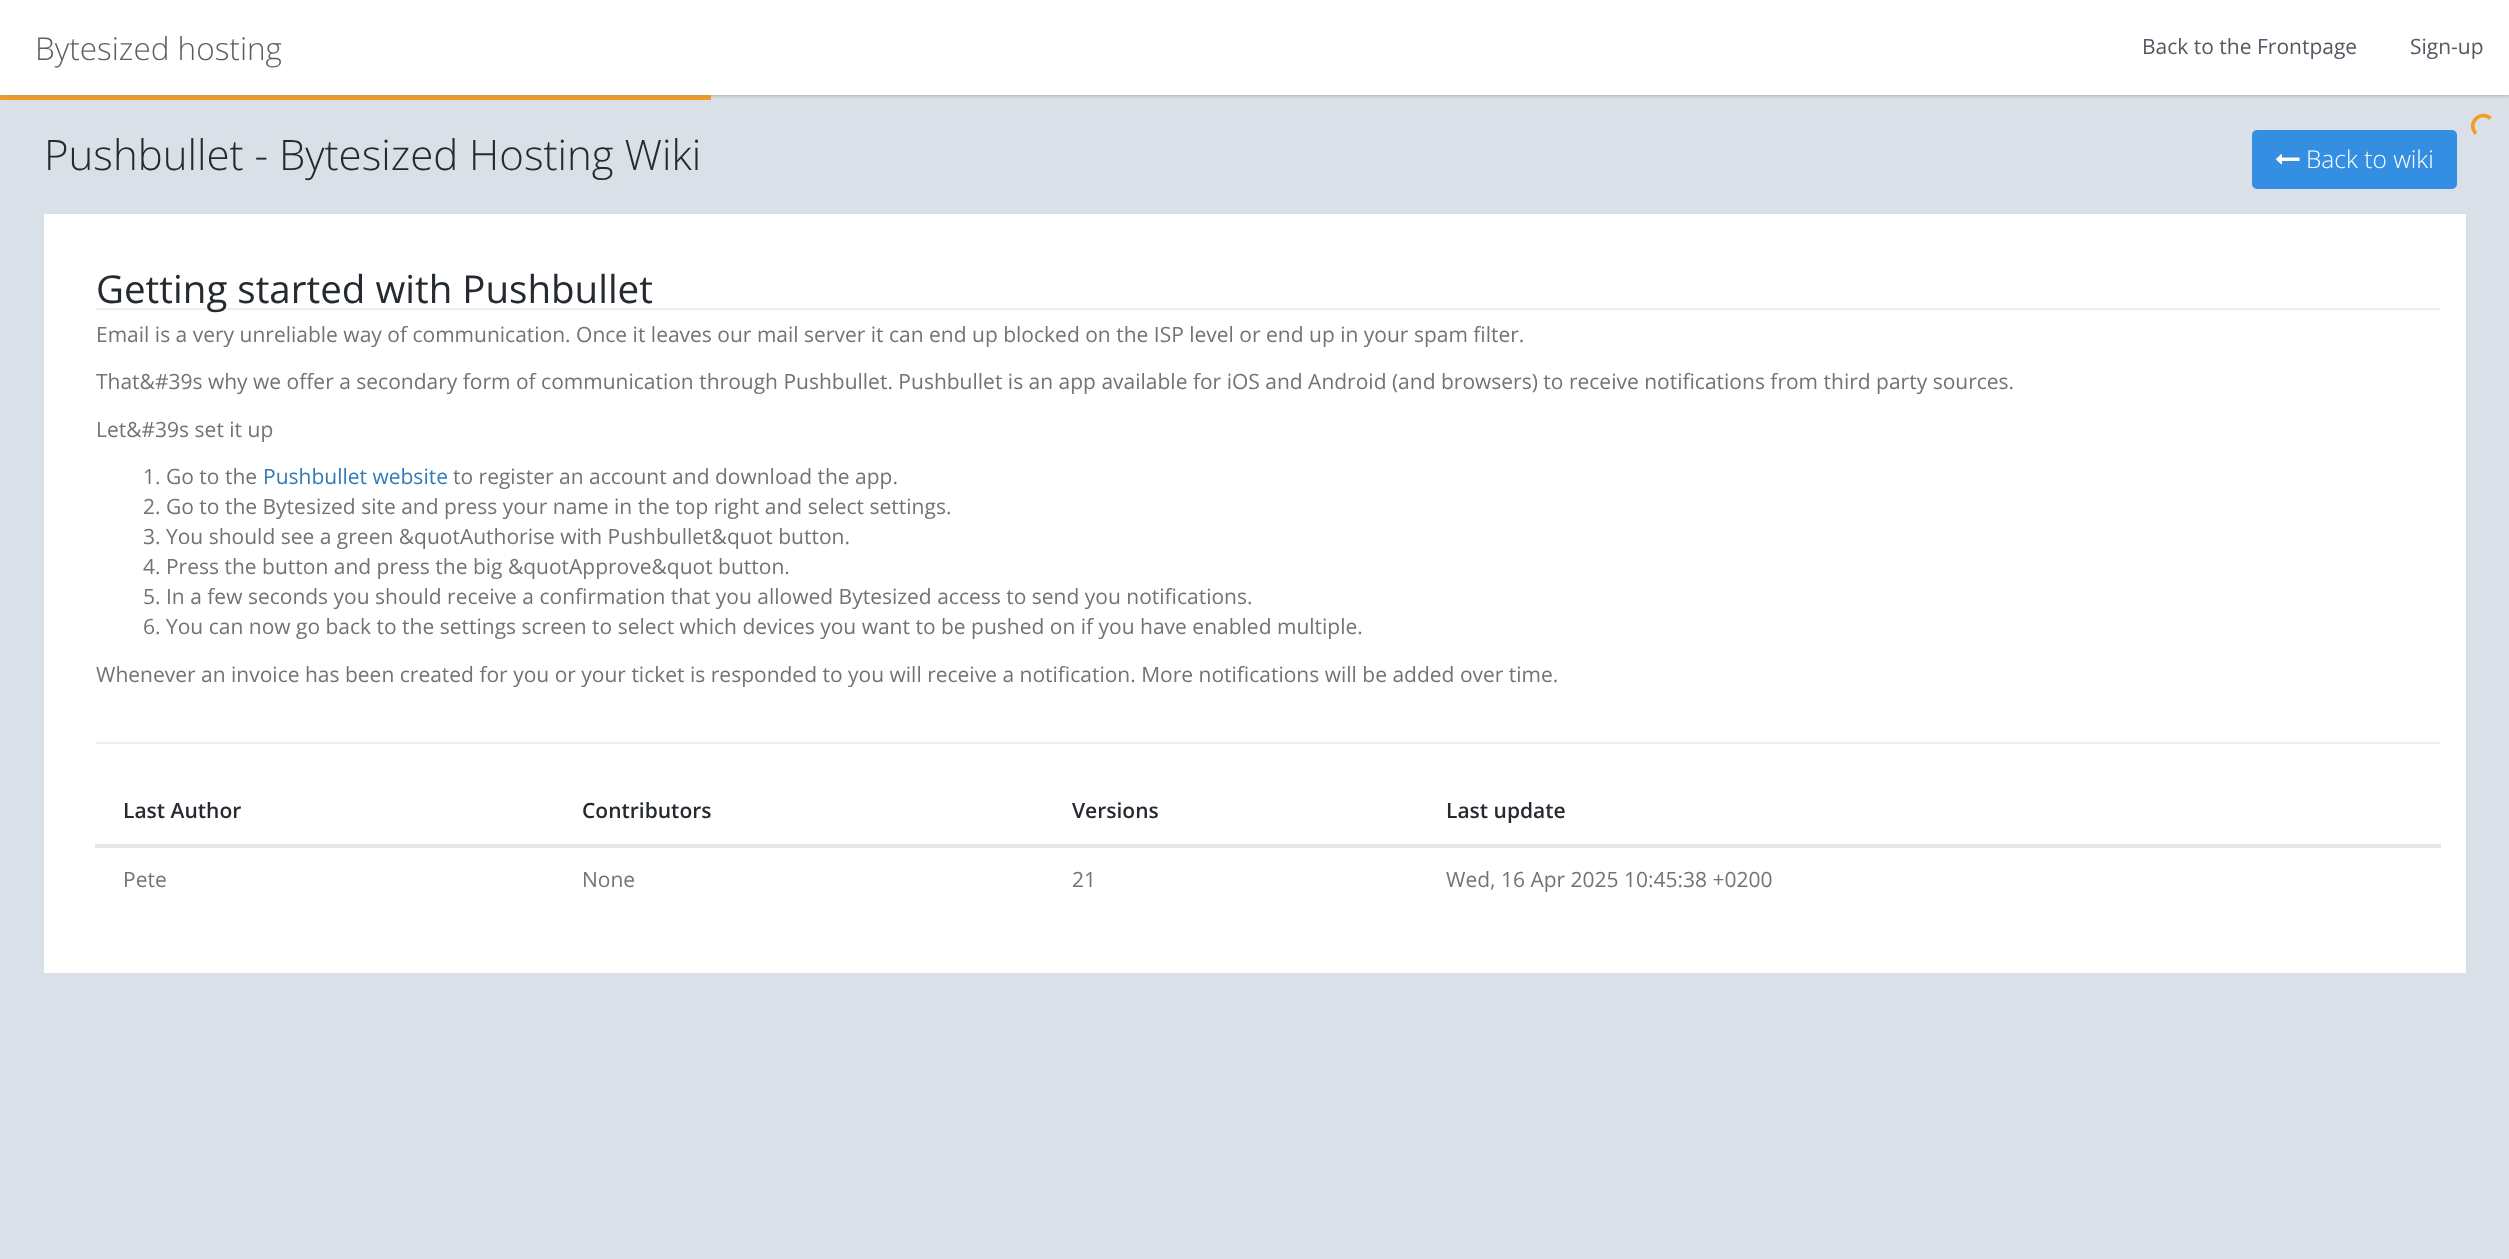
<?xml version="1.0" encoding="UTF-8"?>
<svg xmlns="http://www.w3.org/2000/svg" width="2509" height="1259">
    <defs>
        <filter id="blur1" x="-50%" y="-200%" width="200%" height="500%"><feGaussianBlur stdDeviation="2"/></filter>
    </defs>
    <rect width="100%" height="100%" fill="#D9E0E7"/>
    <rect x="0" y="95" width="711" height="5" fill="#F59C1A"/>
    <rect x="0" y="0" width="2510" height="95" fill="#999999" filter="url(#blur1)"/>
    <rect x="0" y="0" width="2509" height="95" fill="#FFFFFF"/>
    <text x="35" y="60" font-family="Open Sans" font-size="31.5" font-weight="300" fill="#5E5E5E">Bytesized hosting</text>
    <text x="2142" y="54" font-family="Open Sans" font-size="21" fill="#585663">Back to the Frontpage</text>
    <text x="2410" y="54" font-family="Open Sans" font-size="21" fill="#585663">Sign-up</text>
    <text x="44" y="170" font-family="Open Sans" font-size="42" font-weight="300" fill="#242A30">Pushbullet - Bytesized Hosting Wiki</text>
    <rect x="2253" y="131" width="203" height="57" rx="4" fill="#348FE2" stroke="#348FE2" stroke-width="2"/>
    <image x="2275" y="154" width="25" height="11" href="img_01.png"/>
    <text x="2306" y="168" font-family="Open Sans" font-size="24.5" font-weight="300" fill="#FFFFFF">Back to wiki</text>
    <rect x="44" y="214" width="2422" height="759" fill="#FFFFFF"/>
    <rect x="96" y="308" width="2344" height="2" fill="#EEEEEE"/>
    <text x="96" y="303" font-family="Open Sans" font-size="38.5" fill="#242A30">Getting started with Pushbullet</text>
    <text x="96" y="342" font-family="Open Sans" font-size="21" fill="#707478">Email is a very unreliable way of communication. Once it leaves our mail server it can end up blocked on the ISP level or end up in your spam filter.</text>
    <text x="96" y="389" font-family="Open Sans" font-size="21" fill="#707478">That&amp;#39s why we offer a secondary form of communication through Pushbullet. Pushbullet is an app available for iOS and Android (and browsers) to receive notifications from third party sources.</text>
    <text x="96" y="437" font-family="Open Sans" font-size="21" fill="#707478">Let&amp;#39s set it up</text>
    <text x="143" y="484" font-family="Open Sans" font-size="21" fill="#707478">1. Go to the</text>
    <text x="263" y="484" font-family="Open Sans" font-size="21" fill="#337AB7">Pushbullet website</text>
    <text x="453" y="484" font-family="Open Sans" font-size="21" fill="#707478">to register an account and download the app.</text>
    <text font-family="Open Sans" font-size="21" fill="#707478">
        <tspan x="143" y="514">2. Go to the Bytesized site and press your name in the top right and select settings.</tspan>
        <tspan x="143" y="544">3. You should see a green &amp;quotAuthorise with Pushbullet&amp;quot button.</tspan>
        <tspan x="143" y="574">4. Press the button and press the big &amp;quotApprove&amp;quot button.</tspan>
        <tspan x="143" y="604">5. In a few seconds you should receive a confirmation that you allowed Bytesized access to send you notifications.</tspan>
        <tspan x="143" y="634">6. You can now go back to the settings screen to select which devices you want to be pushed on if you have enabled multiple.</tspan>
    </text>
    <text x="96" y="682" font-family="Open Sans" font-size="21" fill="#707478">Whenever an invoice has been created for you or your ticket is responded to you will receive a notification. More notifications will be added over time.</text>
    <rect x="96" y="742" width="2344" height="2" fill="#EEEEEE"/>
    <text x="123" y="818" font-family="Open Sans" font-size="21" font-weight="600" fill="#242A30">Last Author</text>
    <text x="582" y="818" font-family="Open Sans" font-size="21" font-weight="600" fill="#242A30">Contributors</text>
    <text x="1072" y="818" font-family="Open Sans" font-size="21" font-weight="600" fill="#242A30">Versions</text>
    <rect x="95" y="844" width="2346" height="4" fill="#E2E7EB"/>
    <text x="1446" y="818" font-family="Open Sans" font-size="21" font-weight="600" fill="#242A30">Last update</text>
    <text x="123" y="887" font-family="Open Sans" font-size="21" fill="#707478">Pete</text>
    <text x="582" y="887" font-family="Open Sans" font-size="21" fill="#707478">None</text>
    <text x="1072" y="887" font-family="Open Sans" font-size="21" fill="#707478">21</text>
    <text x="1446" y="887" font-family="Open Sans" font-size="21" fill="#707478">Wed, 16 Apr 2025 10:45:38 +0200</text>
    <path d="M 2476 133.5 C 2466 123.5 2481 109 2490.5 118.5" fill="none" stroke="#F59C1A" stroke-width="3.5"/>
</svg>
